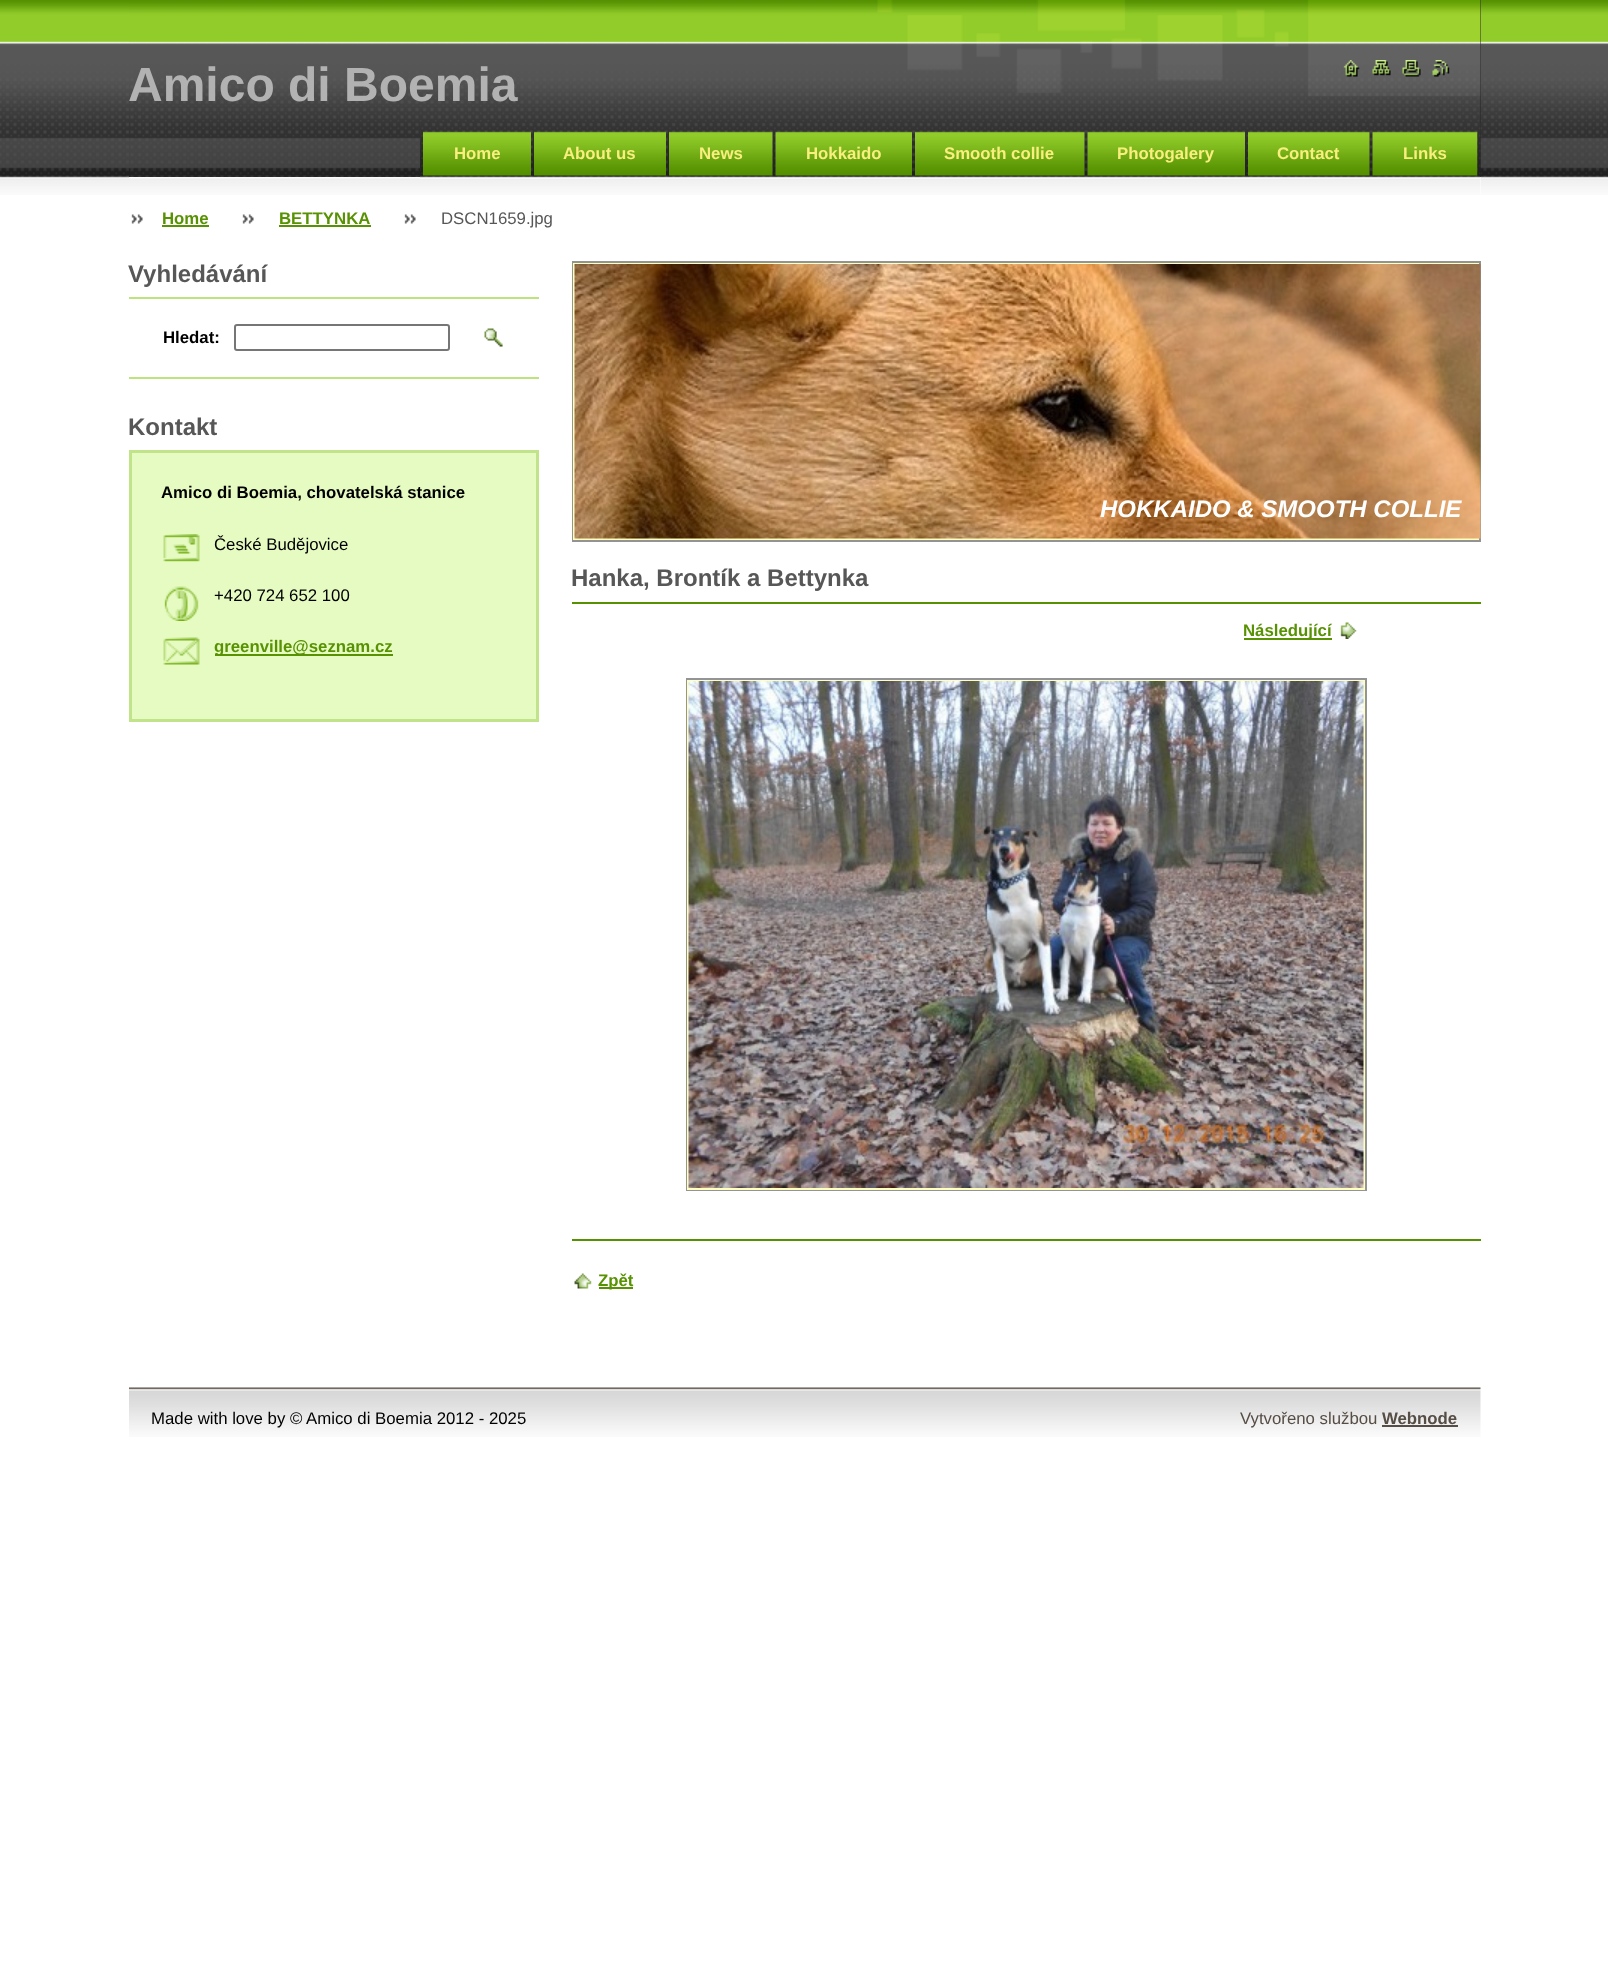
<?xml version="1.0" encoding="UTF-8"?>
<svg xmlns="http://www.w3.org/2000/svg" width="1608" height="1961">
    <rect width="100%" height="100%" fill="#FFFFFF"/>
    <image x="0" y="0" width="1608" height="195" href="img_01.png"/>
    <rect x="1480" y="0" width="1" height="177" fill="#262626"/>
    <image x="129" y="0" width="1352" height="177" href="img_02.png"/>
    <text x="128" y="101" font-family="Liberation Sans" font-size="48" font-weight="700" fill="#B2B2B2">Amico di Boemia</text>
    <image x="1343" y="60" width="17" height="17" href="img_03.png"/>
    <image x="1372" y="60" width="19" height="16" href="img_04.png"/>
    <image x="1402" y="60" width="19" height="17" href="img_05.png"/>
    <image x="1432" y="60" width="18" height="17" href="img_06.png"/>
    <rect x="129" y="177" width="1352" height="18" fill="#FFFFFF"/>
    <image x="129" y="177" width="1352" height="18" href="img_16.png"/>
    <image x="420" y="123" width="1061" height="56" href="img_07.png"/>
    <image x="423" y="131" width="108" height="45" href="img_08.png"/>
    <text x="454" y="159" font-family="Liberation Sans" font-size="16.8" font-weight="700" fill="#F9EF7F">Home</text>
    <image x="534" y="131" width="132" height="45" href="img_09.png"/>
    <text x="563" y="159" font-family="Liberation Sans" font-size="16.8" font-weight="700" fill="#F9EF7F">About us</text>
    <image x="669" y="131" width="104" height="45" href="img_10.png"/>
    <text x="699" y="159" font-family="Liberation Sans" font-size="16.8" font-weight="700" fill="#F9EF7F">News</text>
    <image x="775" y="131" width="137" height="45" href="img_11.png"/>
    <text x="806" y="159" font-family="Liberation Sans" font-size="16.8" font-weight="700" fill="#F9EF7F">Hokkaido</text>
    <image x="915" y="131" width="170" height="45" href="img_12.png"/>
    <text x="944" y="159" font-family="Liberation Sans" font-size="16.8" font-weight="700" fill="#F9EF7F">Smooth collie</text>
    <image x="1087" y="131" width="158" height="45" href="img_13.png"/>
    <text x="1117" y="159" font-family="Liberation Sans" font-size="16.8" font-weight="700" fill="#F9EF7F">Photogalery</text>
    <image x="1248" y="131" width="122" height="45" href="img_14.png"/>
    <text x="1277" y="159" font-family="Liberation Sans" font-size="16.8" font-weight="700" fill="#F9EF7F">Contact</text>
    <image x="1372" y="131" width="106" height="45" href="img_15.png"/>
    <text x="1403" y="159" font-family="Liberation Sans" font-size="16.8" font-weight="700" fill="#F9EF7F">Links</text>
    <image x="131" y="214" width="12" height="10" href="img_17.png"/>
    <text x="162" y="224" font-family="Liberation Sans" font-size="16.8" font-weight="700" fill="#589203">Home</text>
    <rect x="162" y="225" width="47" height="2" fill="#589203"/>
    <image x="242" y="214" width="12" height="10" href="img_17.png"/>
    <text x="279" y="224" font-family="Liberation Sans" font-size="16.8" font-weight="700" fill="#589203">BETTYNKA</text>
    <rect x="279" y="225" width="92" height="2" fill="#589203"/>
    <image x="404" y="214" width="12" height="10" href="img_18.png"/>
    <text x="441" y="224" font-family="Liberation Sans" font-size="16.8" fill="#575757">DSCN1659.jpg</text>
    <text x="128" y="282" font-family="Liberation Sans" font-size="24" font-weight="700" fill="#575757">Vyhledávání</text>
    <rect x="129" y="297" width="410" height="2" fill="#BCE37C"/>
    <rect x="129" y="377" width="410" height="2" fill="#BCE37C"/>
    <text x="163" y="343" font-family="Liberation Sans" font-size="16.8" font-weight="700" fill="#000000">Hledat:</text>
    <rect x="235" y="325" width="214" height="25" rx="2" fill="none" stroke="#767676" stroke-width="2"/>
    <image x="484" y="328" width="19" height="19" href="img_19.png"/>
    <text x="128" y="435" font-family="Liberation Sans" font-size="24" font-weight="700" fill="#575757">Kontakt</text>
    <rect x="130.5" y="451.5" width="407" height="269" fill="#E6FBC2" stroke="#C1E48A" stroke-width="3"/>
    <text x="161" y="498" font-family="Liberation Sans" font-size="16.8" font-weight="700" fill="#000000">Amico di Boemia, chovatelská stanice</text>
    <image x="163" y="534" width="37" height="28" href="img_20.png"/>
    <text x="214" y="550" font-family="Liberation Sans" font-size="16.8" fill="#000000">České Budějovice</text>
    <image x="164" y="586" width="35" height="35" href="img_21.png"/>
    <text x="214" y="601" font-family="Liberation Sans" font-size="16.8" fill="#000000">+420 724 652 100</text>
    <image x="163" y="637" width="37" height="28" href="img_22.png"/>
    <rect x="215" y="654" width="178" height="2" fill="#589203"/>
    <text x="214" y="652" font-family="Liberation Sans" font-size="16.8" font-weight="700" fill="#589203">greenville@seznam.cz</text>
    <rect x="573" y="262" width="907" height="279" fill="none" stroke="#939393" stroke-width="2"/>
    <rect x="574" y="264" width="904" height="275" fill="none" stroke="#FFFFBE" stroke-width="2"/>
    <image x="574" y="264" width="907" height="275" href="img_23.png"/>
    <text x="1100" y="517" font-family="Liberation Sans" font-size="24" font-weight="700" font-style="italic" fill="#FFFFFF">HOKKAIDO &amp; SMOOTH COLLIE</text>
    <text x="571" y="586" font-family="Liberation Sans" font-size="24" font-weight="700" fill="#575757">Hanka, Brontík a Bettynka</text>
    <rect x="572" y="602" width="909" height="2" fill="#569102"/>
    <rect x="572" y="1239" width="909" height="2" fill="#569102"/>
    <rect x="1244" y="638" width="88" height="2" fill="#589203"/>
    <text x="1243" y="636" font-family="Liberation Sans" font-size="16.8" font-weight="700" fill="#589203">Následující</text>
    <image x="1340" y="622" width="17" height="17" href="img_24.png"/>
    <rect x="687" y="679" width="679" height="511" fill="none" stroke="#949496" stroke-width="2"/>
    <rect x="688" y="681" width="676" height="508" fill="none" stroke="#FFFFBE" stroke-width="2"/>
    <image x="688" y="681" width="676" height="507" href="img_25.png"/>
    <image x="574" y="1273" width="18" height="16" href="img_26.png"/>
    <rect x="599" y="1287" width="34" height="2" fill="#589203"/>
    <text x="598" y="1286" font-family="Liberation Sans" font-size="16.8" font-weight="700" fill="#589203">Zpět</text>
    <image x="129" y="1387" width="1352" height="50" href="img_27.png"/>
    <text x="151" y="1424" font-family="Liberation Sans" font-size="16.8" fill="#000000">Made with love by © Amico di Boemia 2012 - 2025</text>
    <text x="1240" y="1424" font-family="Liberation Sans" font-size="16.8" fill="#564D45">Vytvořeno službou</text>
    <text x="1382" y="1424" font-family="Liberation Sans" font-size="16.8" font-weight="700" fill="#564D45">Webnode</text>
    <rect x="1382" y="1425" width="76" height="2" fill="#564D45"/>
</svg>
